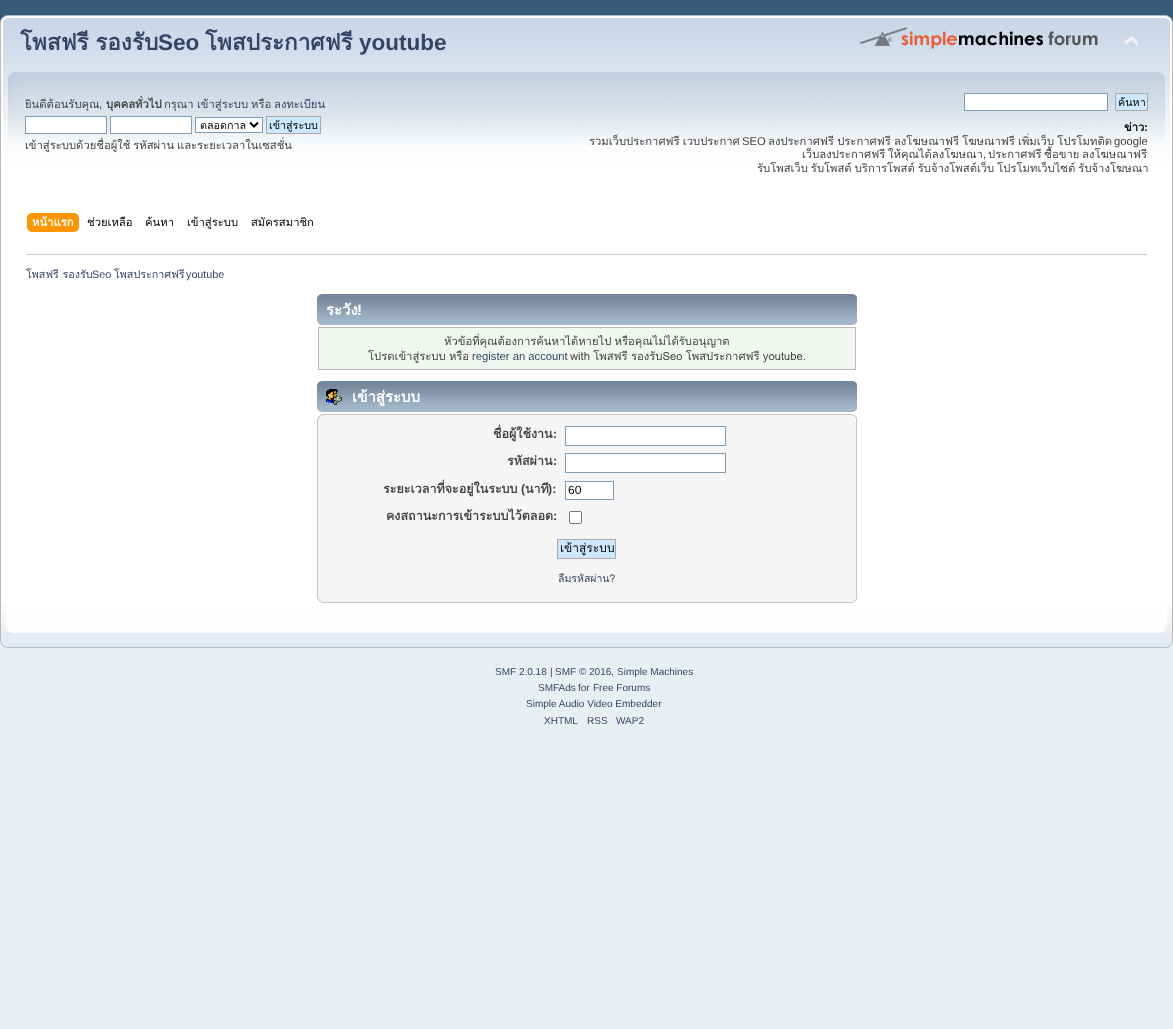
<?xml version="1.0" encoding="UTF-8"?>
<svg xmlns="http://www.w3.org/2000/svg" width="1173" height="1029">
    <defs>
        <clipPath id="clip1"><rect x="25" y="93" width="562" height="63"/></clipPath>
        <clipPath id="clip2"><rect x="1116" y="94" width="31" height="16"/></clipPath>
    </defs>
    <rect width="100%" height="100%" fill="#E9EEF2"/>
    <image x="0" y="0" width="1173" height="15" href="img_01.png"/>
    <image x="0" y="15" width="1159" height="233" href="img_02.png"/>
    <image x="1159" y="15" width="14" height="233" href="img_03.png"/>
    <text x="20" y="50" word-spacing="-1" font-family="Loma" font-size="22.5" font-weight="700" fill="#334466">โพสฟรี รองรับ</text>
    <text x="158" y="50" font-family="Liberation Sans" font-size="22.5" font-weight="700" fill="#334466">Seo</text>
    <text x="205" y="50" font-family="Loma" font-size="22.5" font-weight="700" fill="#334466">โพสประกาศฟรี</text>
    <text x="359" y="50" font-family="Liberation Sans" font-size="22.5" font-weight="700" fill="#334466">youtube</text>
    <image x="860" y="27" width="238" height="22" href="img_04.png"/>
    <image x="1124" y="35" width="15" height="12" href="img_05.png"/>
    <g clip-path="url(#clip1)">
        <text x="25" y="108" font-family="Loma" font-size="11.25" fill="#444444">ยินดีต้อนรับคุณ</text>
    </g>
    <text x="99" y="108" font-family="Liberation Sans" font-size="11.25" fill="#444444">,</text>
    <text x="106" y="108" font-family="Loma" font-size="11.25" font-weight="700" fill="#444444">บุคคลทั่วไป</text>
    <text x="164" y="108" font-family="Loma" font-size="11.25" fill="#444444">กรุณา</text>
    <text x="197" y="108" font-family="Loma" font-size="11.25" fill="#334466">เข้าสู่ระบบ</text>
    <text x="251" y="108" font-family="Loma" font-size="11.25" fill="#444444">หรือ</text>
    <text x="274" y="108" font-family="Loma" font-size="11.25" fill="#334466">ลงทะเบียน</text>
    <rect x="25.5" y="116.5" width="81" height="17" fill="#FFFFFF" stroke="#7F9DB9"/>
    <rect x="110.5" y="116.5" width="81" height="17" fill="#FFFFFF" stroke="#7F9DB9"/>
    <rect x="195.5" y="117.5" width="67" height="15" fill="#FFFFFF" stroke="#7F9DB9"/>
    <path d="M 250 122.5 L 254 126.5 L 258 122.5" fill="none" stroke="#000000" stroke-width="2"/>
    <text x="200" y="129" font-family="Loma" font-size="10.75" fill="#000000">ตลอดกาล</text>
    <rect x="266.5" y="116.5" width="54" height="17" fill="#CDE7FF" stroke="#AAAAAA"/>
    <text x="269" y="129" font-family="Loma" font-size="10.75" fill="#000000">เข้าสู่ระบบ</text>
    <g clip-path="url(#clip1)">
        <text x="25" y="149" word-spacing="-1" font-family="Loma" font-size="11.25" fill="#444444">เข้าสู่ระบบด้วยชื่อผู้ใช้ รหัสผ่าน และระยะเวลาในเซสชั่น</text>
    </g>
    <rect x="964.5" y="93.5" width="143" height="17" fill="#FFFFFF" stroke="#7F9DB9"/>
    <rect x="1115.5" y="93.5" width="32" height="17" fill="#CDE7FF" stroke="#AAAAAA"/>
    <g clip-path="url(#clip2)">
        <text x="1118" y="106" font-family="Loma" font-size="10.75" fill="#000000">ค้นหา</text>
    </g>
    <text x="1124" y="131" font-family="Loma" font-size="11.25" font-weight="700" fill="#000000">ข่าว</text>
    <text x="1144" y="131" font-family="Liberation Sans" font-size="11.25" font-weight="700" fill="#000000">:</text>
    <text x="589" y="145" word-spacing="-0.5" font-family="Loma" font-size="11.25" fill="#444444">รวมเว็บประกาศฟรี เวบประกาศ</text>
    <text x="742" y="145" font-family="Liberation Sans" font-size="11.25" fill="#444444">SEO</text>
    <text x="768" y="145" word-spacing="-0.5" font-family="Loma" font-size="11.25" fill="#444444">ลงประกาศฟรี ประกาศฟรี ลงโฆษณาฟรี โฆษณาฟรี เพิ่มเว็บ โปรโมทติด</text>
    <text x="1114" y="145" font-family="Liberation Sans" font-size="11.25" fill="#444444">google</text>
    <text x="802" y="158" word-spacing="-1" font-family="Loma" font-size="11.25" fill="#444444">เว็บลงประกาศฟรี ให้คุณได้ลงโฆษณา</text>
    <text x="983" y="158" font-family="Liberation Sans" font-size="11.25" fill="#444444">,</text>
    <text x="988" y="158" word-spacing="-1" font-family="Loma" font-size="11.25" fill="#444444">ประกาศฟรี ซื้อขาย ลงโฆษณาฟรี</text>
    <text x="757" y="172" word-spacing="-0.75" font-family="Loma" font-size="11.25" fill="#444444">รับโพสเว็บ รับโพสต์ บริการโพสต์ รับจ้างโพสต์เว็บ โปรโมทเว็บไซต์ รับจ้างโฆษณา</text>
    <image x="32" y="213" width="47" height="19" href="img_06.png"/>
    <image x="27" y="213" width="5" height="19" href="img_07.png"/>
    <text x="32" y="226" font-family="Loma" font-size="11.25" font-weight="700" fill="#FFFFFF">หน้าแรก</text>
    <text x="87" y="226" font-family="Loma" font-size="11.25" fill="#000000">ช่วยเหลือ</text>
    <text x="145" y="226" font-family="Loma" font-size="11.25" fill="#000000">ค้นหา</text>
    <text x="187" y="226" font-family="Loma" font-size="11.25" fill="#000000">เข้าสู่ระบบ</text>
    <text x="251" y="226" font-family="Loma" font-size="11.25" fill="#000000">สมัครสมาชิก</text>
    <rect x="1" y="248" width="1171" height="356" fill="#FFFFFF"/>
    <rect x="0" y="248" width="1" height="356" fill="#B7B7B7"/>
    <rect x="1172" y="248" width="1" height="356" fill="#B7B7B7"/>
    <rect x="26" y="254" width="1121" height="1" fill="#CCCCCC"/>
    <text x="26" y="278" font-family="Loma" font-size="10.75" fill="#334466">โพสฟรี รองรับ</text>
    <text x="92" y="278" font-family="Liberation Sans" font-size="10.75" fill="#334466">Seo</text>
    <text x="114" y="278" font-family="Loma" font-size="10.75" fill="#334466">โพสประกาศฟรี</text>
    <text x="186" y="278" font-family="Liberation Sans" font-size="10.75" fill="#334466">youtube</text>
    <image x="317" y="294" width="535" height="31" href="img_08.png"/>
    <image x="852" y="294" width="5" height="31" href="img_09.png"/>
    <text x="326" y="315" font-family="Loma" font-size="15" font-weight="700" fill="#FFFFFF">ระวัง</text>
    <text x="357" y="315" font-family="Liberation Sans" font-size="15" font-weight="700" fill="#FFFFFF">!</text>
    <rect x="318.5" y="327.5" width="537" height="42" fill="#F0F6F0" stroke="#BBBBBB"/>
    <text x="444" y="345" word-spacing="-0.5" font-family="Loma" font-size="11.25" fill="#444444">หัวข้อที่คุณต้องการค้นหาได้หายไป หรือคุณไม่ได้รับอนุญาต</text>
    <text x="368" y="360" word-spacing="-0.5" font-family="Loma" font-size="11.25" fill="#444444">โปรดเข้าสู่ระบบ หรือ</text>
    <text x="472" y="360" font-family="Liberation Sans" font-size="11.25" fill="#334466">register an account</text>
    <text x="570" y="360" word-spacing="-0.5" font-family="Loma" font-size="11.25" fill="#444444">with โพสฟรี รองรับSeo โพสประกาศฟรี youtube.</text>
    <image x="317" y="381" width="535" height="31" href="img_08.png"/>
    <image x="852" y="381" width="5" height="31" href="img_09.png"/>
    <image x="326" y="389" width="16" height="16" href="img_10.png"/>
    <text x="352" y="402" font-family="Loma" font-size="15" font-weight="700" fill="#FFFFFF">เข้าสู่ระบบ</text>
    <image x="317" y="414" width="534" height="11" href="img_11.png"/>
    <image x="851" y="414" width="6" height="11" href="img_12.png"/>
    <rect x="318" y="425" width="538" height="167" fill="#F5F5F5"/>
    <rect x="856" y="425" width="1" height="167" fill="#C5C5C5"/>
    <rect x="317" y="425" width="1" height="167" fill="#C5C5C5"/>
    <text x="493" y="438" font-family="Loma" font-size="12.5" font-weight="700" fill="#444444">ชื่อผู้ใช้งาน</text>
    <text x="553" y="438" font-family="Liberation Sans" font-size="12.5" font-weight="700" fill="#444444">:</text>
    <rect x="565.5" y="426.5" width="160" height="19" fill="#FFFFFF" stroke="#7F9DB9"/>
    <text x="507" y="465" font-family="Loma" font-size="12.5" font-weight="700" fill="#444444">รหัสผ่าน</text>
    <text x="553" y="465" font-family="Liberation Sans" font-size="12.5" font-weight="700" fill="#444444">:</text>
    <rect x="565.5" y="453.5" width="160" height="19" fill="#FFFFFF" stroke="#7F9DB9"/>
    <text x="383" y="493" font-family="Loma" font-size="12.5" font-weight="700" fill="#444444">ระยะเวลาที่จะอยู่ในระบบ</text>
    <text x="521" y="493" font-family="Liberation Sans" font-size="12.5" font-weight="700" fill="#444444">(</text>
    <text x="525" y="493" font-family="Loma" font-size="12.5" font-weight="700" fill="#444444">นาที</text>
    <text x="548" y="493" font-family="Liberation Sans" font-size="12.5" font-weight="700" fill="#444444">):</text>
    <rect x="565.5" y="481.5" width="48" height="18" fill="#FFFFFF" stroke="#7F9DB9"/>
    <text x="568" y="494" font-family="Liberation Sans" font-size="12" fill="#000000">60</text>
    <text x="386" y="520" font-family="Loma" font-size="12.5" font-weight="700" fill="#444444">คงสถานะการเข้าระบบไว้ตลอด</text>
    <text x="553" y="520" font-family="Liberation Sans" font-size="12.5" font-weight="700" fill="#444444">:</text>
    <rect x="569.5" y="511.5" width="12" height="12" rx="1.5" fill="#FFFFFF" stroke="#767676"/>
    <rect x="557.5" y="539.5" width="58" height="19" fill="#CDE7FF" stroke="#AAAAAA"/>
    <text x="560" y="552" font-family="Loma" font-size="12" fill="#000000">เข้าสู่ระบบ</text>
    <text x="558" y="582" font-family="Loma" font-size="10.5" fill="#334466">ลืมรหัสผ่าน?</text>
    <image x="317" y="592" width="534" height="11" href="img_13.png"/>
    <image x="851" y="592" width="6" height="11" href="img_14.png"/>
    <image x="0" y="604" width="1161" height="44" href="img_15.png"/>
    <image x="1161" y="604" width="12" height="44" href="img_16.png"/>
    <text x="495" y="675" font-family="Liberation Sans" font-size="10" fill="#334466">SMF 2.0.18</text>
    <text x="550" y="675" font-family="Liberation Sans" font-size="10" fill="#444444">|</text>
    <text x="555" y="675" font-family="Liberation Sans" font-size="10" fill="#334466">SMF © 2016</text>
    <text x="611" y="675" font-family="Liberation Sans" font-size="10" fill="#444444">,</text>
    <text x="617" y="675" font-family="Liberation Sans" font-size="10" fill="#334466">Simple Machines</text>
    <text x="538" y="691" font-family="Liberation Sans" font-size="10" fill="#334466">SMFAds</text>
    <text x="578" y="691" font-family="Liberation Sans" font-size="10" fill="#444444">for</text>
    <text x="593" y="691" font-family="Liberation Sans" font-size="10" fill="#334466">Free Forums</text>
    <text x="526" y="707" font-family="Liberation Sans" font-size="10" fill="#334466">Simple Audio Video Embedder</text>
    <text x="544" y="724" font-family="Liberation Sans" font-size="10" fill="#334466">XHTML</text>
    <text x="587" y="724" font-family="Liberation Sans" font-size="10" fill="#334466">RSS</text>
    <text x="616" y="724" font-family="Liberation Sans" font-size="10" fill="#334466">WAP2</text>
</svg>
